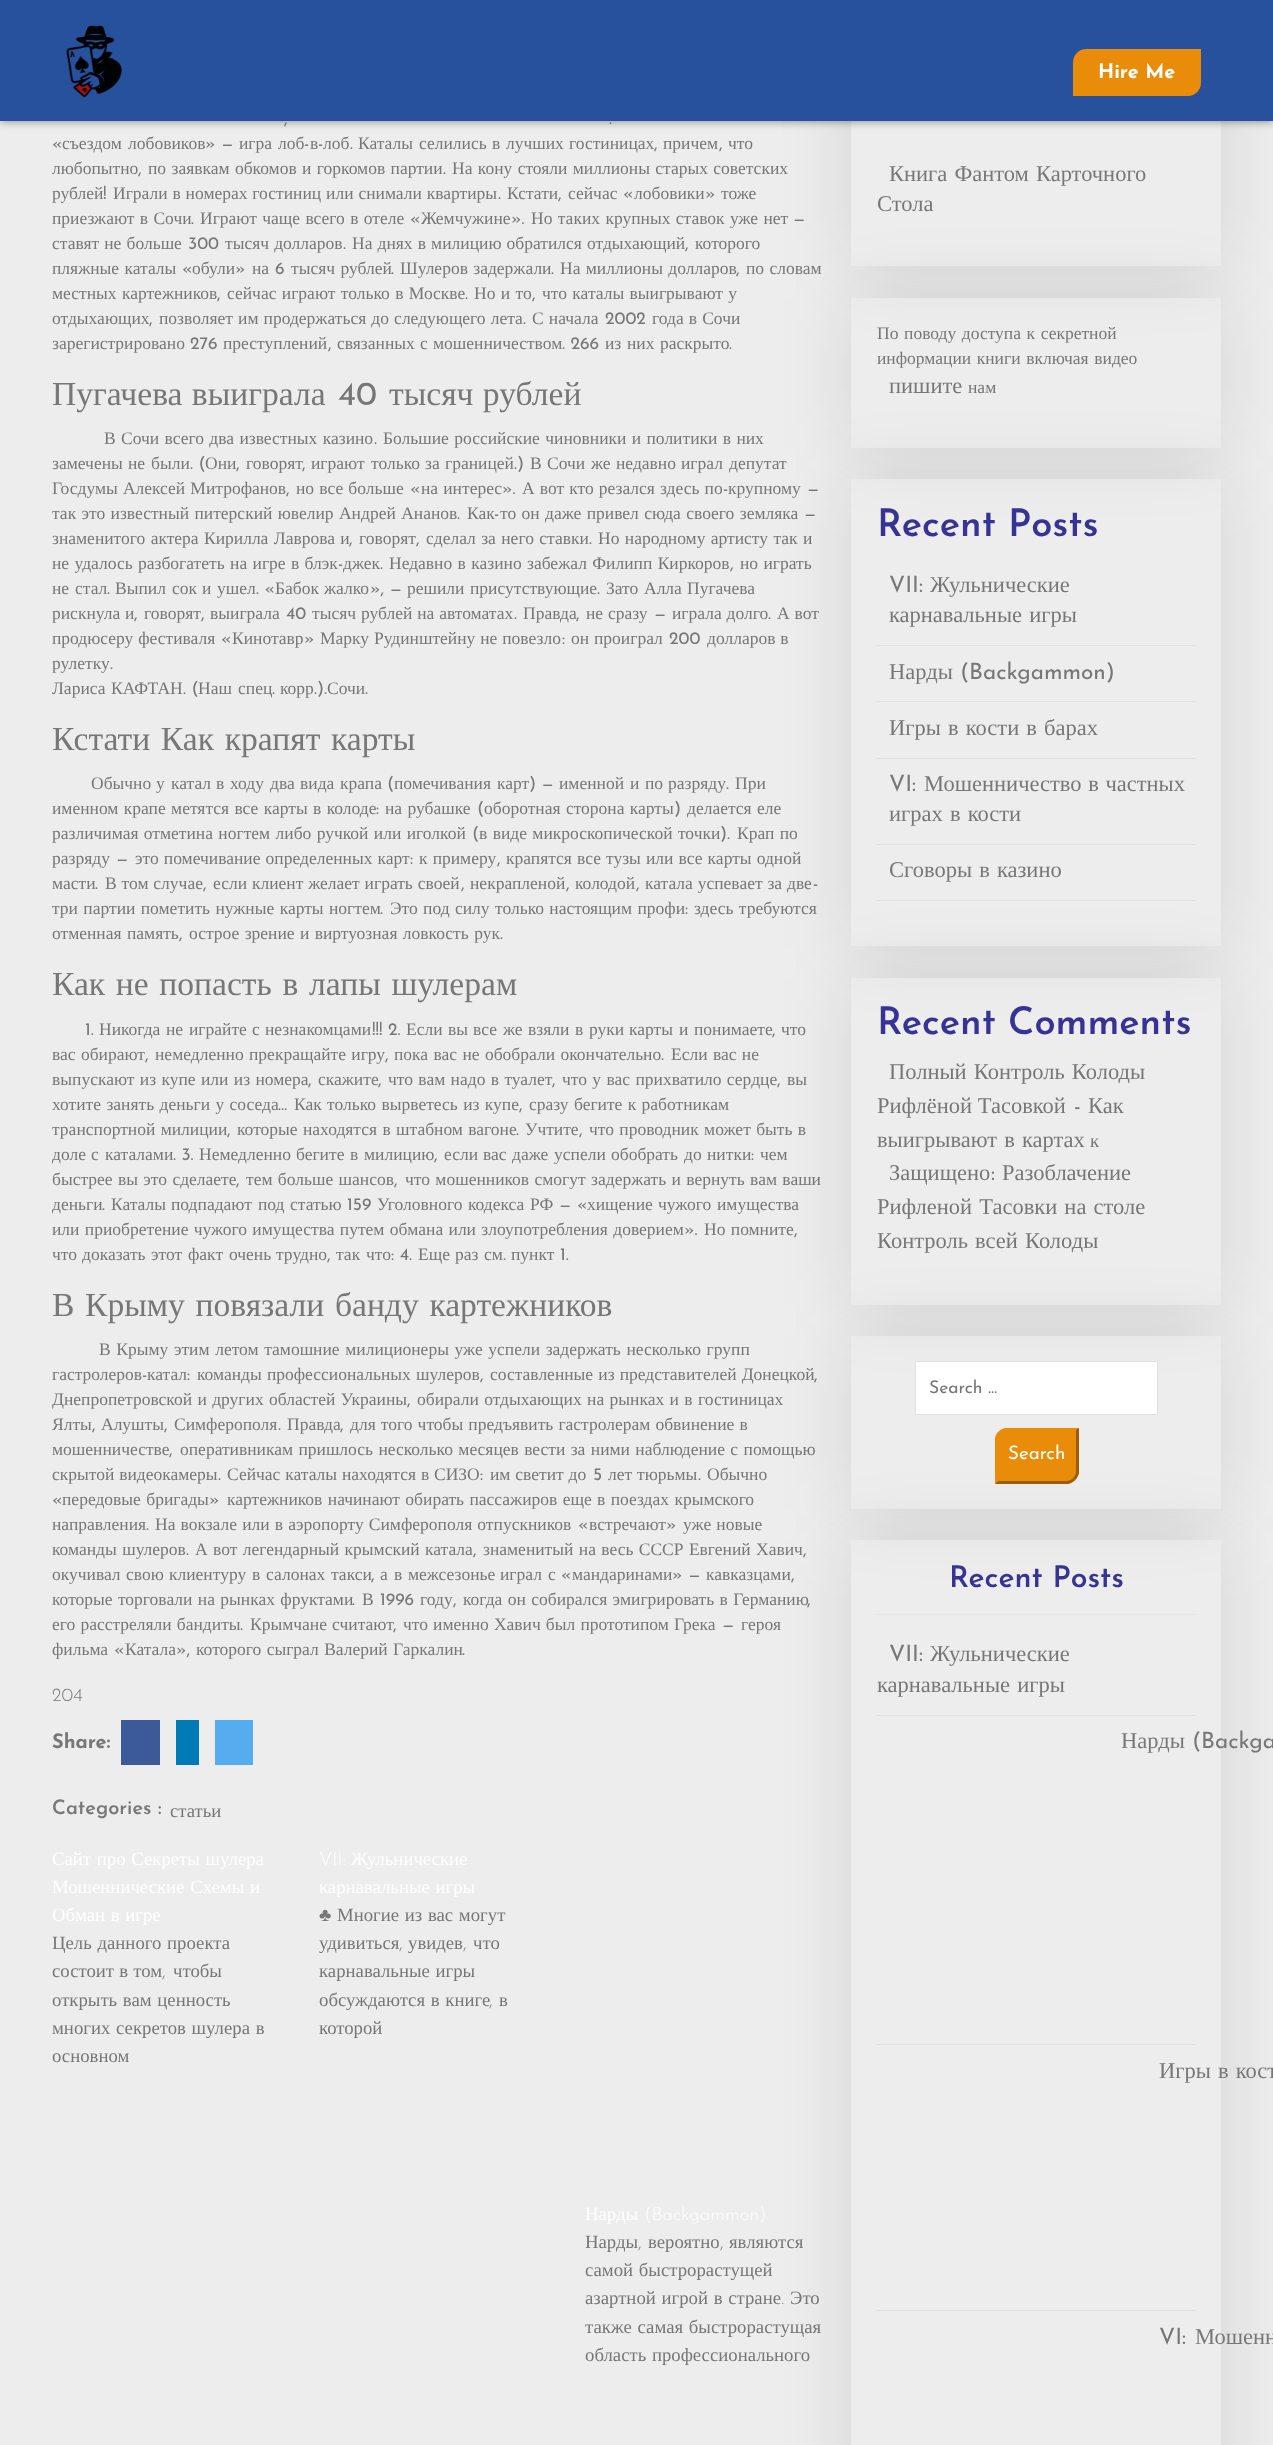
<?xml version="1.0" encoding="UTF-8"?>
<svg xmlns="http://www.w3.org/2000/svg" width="1273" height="2445">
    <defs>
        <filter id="blur1" x="-50%" y="-200%" width="200%" height="500%"><feGaussianBlur stdDeviation="5"/></filter>
        <clipPath id="clip1"><path d="M 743 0 H 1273 V 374 H 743 Z M 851 -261 H 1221 V 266 H 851 Z" clip-rule="evenodd"/></clipPath>
        <filter id="blur2" x="-50%" y="-200%" width="200%" height="500%"><feGaussianBlur stdDeviation="35.5"/></filter>
        <clipPath id="clip2"><path d="M 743 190 H 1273 V 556 H 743 Z M 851 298 H 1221 V 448 H 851 Z" clip-rule="evenodd"/></clipPath>
        <clipPath id="clip3"><path d="M 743 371 H 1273 V 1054 H 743 Z M 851 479 H 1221 V 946 H 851 Z" clip-rule="evenodd"/></clipPath>
        <clipPath id="clip4"><path d="M 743 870 H 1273 V 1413 H 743 Z M 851 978 H 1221 V 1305 H 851 Z" clip-rule="evenodd"/></clipPath>
        <clipPath id="clip5"><path d="M 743 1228 H 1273 V 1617 H 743 Z M 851 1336 H 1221 V 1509 H 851 Z" clip-rule="evenodd"/></clipPath>
        <clipPath id="clip6"><path d="M 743 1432 H 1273 V 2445 H 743 Z M 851 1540 H 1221 V 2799 H 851 Z" clip-rule="evenodd"/></clipPath>
    </defs>
    <rect width="100%" height="100%" fill="#EDEDED"/>
    <rect x="0" y="0" width="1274" height="121" fill="#808080" filter="url(#blur1)"/>
    <g clip-path="url(#clip1)">
        <rect x="851" y="-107" width="370" height="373" fill="#000000" fill-opacity="0.11" filter="url(#blur2)"/>
    </g>
    <rect x="0" y="0" width="1273" height="121" fill="#27509D"/>
    <image x="66" y="25" width="56" height="73" href="img_01.png"/>
    <path d="M 1086 49 H 1201 V 83 C 1201 90 1195 96 1188 96 H 1073 V 62 C 1073 55 1079 49 1086 49 Z" fill="#E88C09"/>
    <text x="1098" y="78" font-family="Josefin Sans" font-size="20" font-weight="700" fill="#FFFFFF">Hire Me</text>
    <text x="284" y="124" font-family="Josefin Sans" font-size="17.5" fill="#777777">,</text>
    <text x="609" y="124" font-family="Josefin Sans" font-size="17.5" fill="#777777">.</text>
    <text x="52" y="149" font-family="Josefin Sans" font-size="17.5" fill="#777777">«</text>
    <text x="62" y="149" font-family="Liberation Serif" font-size="17.5" fill="#777777">съездом</text>
    <text x="128" y="149" font-family="Liberation Serif" font-size="17.5" fill="#777777">лобовиков</text>
    <text x="205" y="149" font-family="Josefin Sans" font-size="17.5" fill="#777777">» —</text>
    <text x="239" y="149" font-family="Liberation Serif" font-size="17.5" fill="#777777">игра</text>
    <text x="278" y="149" font-family="Liberation Serif" font-size="17.5" fill="#777777">лоб</text>
    <text x="304" y="149" font-family="Josefin Sans" font-size="17.5" fill="#777777">-</text>
    <text x="310" y="149" font-family="Liberation Serif" font-size="17.5" fill="#777777">в</text>
    <text x="318" y="149" font-family="Josefin Sans" font-size="17.5" fill="#777777">-</text>
    <text x="323" y="149" font-family="Liberation Serif" font-size="17.5" fill="#777777">лоб</text>
    <text x="358" y="149" font-family="Liberation Serif" font-size="17.5" fill="#777777">Каталы</text>
    <text x="419" y="149" font-family="Liberation Serif" font-size="17.5" fill="#777777">селились</text>
    <text x="492" y="149" font-family="Liberation Serif" font-size="17.5" fill="#777777">в</text>
    <text x="506" y="149" font-family="Liberation Serif" font-size="17.5" fill="#777777">лучших</text>
    <text x="569" y="149" font-family="Liberation Serif" font-size="17.5" fill="#777777">гостиницах</text>
    <text x="663" y="149" font-family="Liberation Serif" font-size="17.5" fill="#777777">причем</text>
    <text x="728" y="149" font-family="Liberation Serif" font-size="17.5" fill="#777777">что</text>
    <text x="350" y="149" font-family="Josefin Sans" font-size="17.5" fill="#777777">.</text>
    <text x="654" y="149" font-family="Josefin Sans" font-size="17.5" fill="#777777">,</text>
    <text x="719" y="149" font-family="Josefin Sans" font-size="17.5" fill="#777777">,</text>
    <text x="52" y="174" font-family="Liberation Serif" font-size="17.5" fill="#777777">любопытно</text>
    <text x="138" y="174" font-family="Josefin Sans" font-size="17.5" fill="#777777">,</text>
    <text x="148" y="174" word-spacing="1" font-family="Liberation Serif" font-size="17.5" fill="#777777">по заявкам обкомов и горкомов партии</text>
    <text x="443" y="174" font-family="Josefin Sans" font-size="17.5" fill="#777777">.</text>
    <text x="452" y="174" word-spacing="1" font-family="Liberation Serif" font-size="17.5" fill="#777777">На кону стояли миллионы старых советских</text>
    <text x="52" y="199" font-family="Liberation Serif" font-size="17.5" fill="#777777">рублей</text>
    <text x="103" y="199" font-family="Josefin Sans" font-size="17.5" fill="#777777">!</text>
    <text x="113" y="199" word-spacing="0.5" font-family="Liberation Serif" font-size="17.5" fill="#777777">Играли в номерах гостиниц или снимали квартиры</text>
    <text x="498" y="199" font-family="Josefin Sans" font-size="17.5" fill="#777777">.</text>
    <text x="507" y="199" font-family="Liberation Serif" font-size="17.5" fill="#777777">Кстати</text>
    <text x="558" y="199" font-family="Josefin Sans" font-size="17.5" fill="#777777">,</text>
    <text x="568" y="199" font-family="Liberation Serif" font-size="17.5" fill="#777777">сейчас</text>
    <text x="623" y="199" font-family="Josefin Sans" font-size="17.5" fill="#777777">«</text>
    <text x="634" y="199" font-family="Liberation Serif" font-size="17.5" fill="#777777">лобовики</text>
    <text x="705" y="199" font-family="Josefin Sans" font-size="17.5" fill="#777777">»</text>
    <text x="721" y="199" font-family="Liberation Serif" font-size="17.5" fill="#777777">тоже</text>
    <text x="52" y="224" word-spacing="1" font-family="Liberation Serif" font-size="17.5" fill="#777777">приезжают в Сочи</text>
    <text x="200" y="224" word-spacing="1" font-family="Liberation Serif" font-size="17.5" fill="#777777">Играют чаще всего в отеле</text>
    <text x="410" y="224" font-family="Josefin Sans" font-size="17.5" fill="#777777">«</text>
    <text x="421" y="224" font-family="Liberation Serif" font-size="17.5" fill="#777777">Жемчужине</text>
    <text x="511" y="224" font-family="Josefin Sans" font-size="17.5" fill="#777777">».</text>
    <text x="531" y="224" word-spacing="1" font-family="Liberation Serif" font-size="17.5" fill="#777777">Но таких крупных ставок уже нет</text>
    <text x="793" y="224" font-family="Josefin Sans" font-size="17.5" fill="#777777">—</text>
    <text x="191" y="224" font-family="Josefin Sans" font-size="17.5" fill="#777777">.</text>
    <text x="52" y="249" word-spacing="0.75" font-family="Liberation Serif" font-size="17.5" fill="#777777">ставят не больше</text>
    <text x="188" y="249" font-family="Josefin Sans" font-size="17.5" fill="#777777">300</text>
    <text x="225" y="249" word-spacing="0.75" font-family="Liberation Serif" font-size="17.5" fill="#777777">тысяч долларов</text>
    <text x="343" y="249" font-family="Josefin Sans" font-size="17.5" fill="#777777">.</text>
    <text x="352" y="249" word-spacing="0.75" font-family="Liberation Serif" font-size="17.5" fill="#777777">На днях в милицию обратился отдыхающий</text>
    <text x="685" y="249" font-family="Josefin Sans" font-size="17.5" fill="#777777">,</text>
    <text x="695" y="249" font-family="Liberation Serif" font-size="17.5" fill="#777777">которого</text>
    <text x="52" y="274" word-spacing="1" font-family="Liberation Serif" font-size="17.5" fill="#777777">пляжные каталы</text>
    <text x="182" y="274" font-family="Josefin Sans" font-size="17.5" fill="#777777">«</text>
    <text x="192" y="274" font-family="Liberation Serif" font-size="17.5" fill="#777777">обули</text>
    <text x="235" y="274" font-family="Josefin Sans" font-size="17.5" fill="#777777">»</text>
    <text x="252" y="274" font-family="Liberation Serif" font-size="17.5" fill="#777777">на</text>
    <text x="275" y="274" font-family="Josefin Sans" font-size="17.5" fill="#777777">6</text>
    <text x="291" y="274" word-spacing="1" font-family="Liberation Serif" font-size="17.5" fill="#777777">тысяч рублей</text>
    <text x="391" y="274" font-family="Josefin Sans" font-size="17.5" fill="#777777">.</text>
    <text x="400" y="274" word-spacing="1" font-family="Liberation Serif" font-size="17.5" fill="#777777">Шулеров задержали</text>
    <text x="551" y="274" font-family="Josefin Sans" font-size="17.5" fill="#777777">.</text>
    <text x="560" y="274" word-spacing="1" font-family="Liberation Serif" font-size="17.5" fill="#777777">На миллионы долларов</text>
    <text x="736" y="274" font-family="Josefin Sans" font-size="17.5" fill="#777777">,</text>
    <text x="746" y="274" word-spacing="1" font-family="Liberation Serif" font-size="17.5" fill="#777777">по словам</text>
    <text x="52" y="299" word-spacing="1" font-family="Liberation Serif" font-size="17.5" fill="#777777">местных картежников</text>
    <text x="217" y="299" font-family="Josefin Sans" font-size="17.5" fill="#777777">,</text>
    <text x="227" y="299" word-spacing="1" font-family="Liberation Serif" font-size="17.5" fill="#777777">сейчас играют только в Москве</text>
    <text x="465" y="299" font-family="Josefin Sans" font-size="17.5" fill="#777777">.</text>
    <text x="474" y="299" word-spacing="1" font-family="Liberation Serif" font-size="17.5" fill="#777777">Но и то</text>
    <text x="532" y="299" font-family="Josefin Sans" font-size="17.5" fill="#777777">,</text>
    <text x="542" y="299" word-spacing="1" font-family="Liberation Serif" font-size="17.5" fill="#777777">что каталы выигрывают у</text>
    <text x="52" y="324" font-family="Liberation Serif" font-size="17.5" fill="#777777">отдыхающих</text>
    <text x="149" y="324" font-family="Josefin Sans" font-size="17.5" fill="#777777">,</text>
    <text x="159" y="324" word-spacing="0.75" font-family="Liberation Serif" font-size="17.5" fill="#777777">позволяет им продержаться до следующего лета</text>
    <text x="523" y="324" font-family="Josefin Sans" font-size="17.5" fill="#777777">.</text>
    <text x="532" y="324" word-spacing="0.75" font-family="Liberation Serif" font-size="17.5" fill="#777777">С начала</text>
    <text x="605" y="324" font-family="Josefin Sans" font-size="17.5" fill="#777777">2002</text>
    <text x="652" y="324" word-spacing="0.75" font-family="Liberation Serif" font-size="17.5" fill="#777777">года в Сочи</text>
    <text x="52" y="349" font-family="Liberation Serif" font-size="17.5" fill="#777777">зарегистрировано</text>
    <text x="190" y="349" font-family="Josefin Sans" font-size="17.5" fill="#777777">276</text>
    <text x="223" y="349" font-family="Liberation Serif" font-size="17.5" fill="#777777">преступлений</text>
    <text x="337" y="349" font-family="Liberation Serif" font-size="17.5" fill="#777777">связанных</text>
    <text x="420" y="349" font-family="Liberation Serif" font-size="17.5" fill="#777777">с</text>
    <text x="433" y="349" font-family="Liberation Serif" font-size="17.5" fill="#777777">мошенничеством</text>
    <text x="562" y="349" font-family="Josefin Sans" font-size="17.5" fill="#777777">. 266</text>
    <text x="605" y="349" font-family="Liberation Serif" font-size="17.5" fill="#777777">из</text>
    <text x="627" y="349" font-family="Liberation Serif" font-size="17.5" fill="#777777">них</text>
    <text x="660" y="349" font-family="Liberation Serif" font-size="17.5" fill="#777777">раскрыто</text>
    <text x="328" y="349" font-family="Josefin Sans" font-size="17.5" fill="#777777">,</text>
    <text x="729" y="349" font-family="Josefin Sans" font-size="17.5" fill="#777777">.</text>
    <text x="52" y="405" word-spacing="1" font-family="Liberation Serif" font-size="33.6" fill="#777777">Пугачева выиграла</text>
    <text x="338" y="405" font-family="Josefin Sans" font-size="33.6" fill="#777777">40</text>
    <text x="389" y="405" word-spacing="1" font-family="Liberation Serif" font-size="33.6" fill="#777777">тысяч рублей</text>
    <text x="104" y="444" word-spacing="1" font-family="Liberation Serif" font-size="17.5" fill="#777777">В Сочи всего два известных казино</text>
    <text x="374" y="444" font-family="Josefin Sans" font-size="17.5" fill="#777777">.</text>
    <text x="383" y="444" word-spacing="1" font-family="Liberation Serif" font-size="17.5" fill="#777777">Большие российские чиновники и политики в них</text>
    <text x="52" y="469" font-family="Liberation Serif" font-size="17.5" fill="#777777">замечены</text>
    <text x="128" y="469" font-family="Liberation Serif" font-size="17.5" fill="#777777">не</text>
    <text x="151" y="469" font-family="Liberation Serif" font-size="17.5" fill="#777777">были</text>
    <text x="190" y="469" font-family="Josefin Sans" font-size="17.5" fill="#777777">. (</text>
    <text x="205" y="469" font-family="Liberation Serif" font-size="17.5" fill="#777777">Они</text>
    <text x="236" y="469" font-family="Josefin Sans" font-size="17.5" fill="#777777">,</text>
    <text x="246" y="469" font-family="Liberation Serif" font-size="17.5" fill="#777777">говорят</text>
    <text x="302" y="469" font-family="Josefin Sans" font-size="17.5" fill="#777777">,</text>
    <text x="311" y="469" font-family="Liberation Serif" font-size="17.5" fill="#777777">играют</text>
    <text x="371" y="469" font-family="Liberation Serif" font-size="17.5" fill="#777777">только</text>
    <text x="425" y="469" font-family="Liberation Serif" font-size="17.5" fill="#777777">за</text>
    <text x="445" y="469" font-family="Liberation Serif" font-size="17.5" fill="#777777">границей</text>
    <text x="514" y="469" font-family="Josefin Sans" font-size="17.5" fill="#777777">.)</text>
    <text x="530" y="469" font-family="Liberation Serif" font-size="17.5" fill="#777777">В</text>
    <text x="547" y="469" font-family="Liberation Serif" font-size="17.5" fill="#777777">Сочи</text>
    <text x="591" y="469" font-family="Liberation Serif" font-size="17.5" fill="#777777">же</text>
    <text x="616" y="469" font-family="Liberation Serif" font-size="17.5" fill="#777777">недавно</text>
    <text x="681" y="469" font-family="Liberation Serif" font-size="17.5" fill="#777777">играл</text>
    <text x="729" y="469" font-family="Liberation Serif" font-size="17.5" fill="#777777">депутат</text>
    <text x="52" y="494" word-spacing="0.75" font-family="Liberation Serif" font-size="17.5" fill="#777777">Госдумы Алексей Митрофанов</text>
    <text x="296" y="494" word-spacing="0.75" font-family="Liberation Serif" font-size="17.5" fill="#777777">но все больше</text>
    <text x="410" y="494" font-family="Josefin Sans" font-size="17.5" fill="#777777">«</text>
    <text x="421" y="494" word-spacing="0.75" font-family="Liberation Serif" font-size="17.5" fill="#777777">на интерес</text>
    <text x="502" y="494" font-family="Josefin Sans" font-size="17.5" fill="#777777">».</text>
    <text x="522" y="494" word-spacing="0.75" font-family="Liberation Serif" font-size="17.5" fill="#777777">А вот кто резался здесь по</text>
    <text x="723" y="494" font-family="Josefin Sans" font-size="17.5" fill="#777777">-</text>
    <text x="728" y="494" font-family="Liberation Serif" font-size="17.5" fill="#777777">крупному</text>
    <text x="807" y="494" font-family="Josefin Sans" font-size="17.5" fill="#777777">—</text>
    <text x="286" y="494" font-family="Josefin Sans" font-size="17.5" fill="#777777">,</text>
    <text x="52" y="519" word-spacing="1" font-family="Liberation Serif" font-size="17.5" fill="#777777">так это известный питерский ювелир Андрей Ананов</text>
    <text x="467" y="519" font-family="Liberation Serif" font-size="17.5" fill="#777777">Как</text>
    <text x="494" y="519" font-family="Josefin Sans" font-size="17.5" fill="#777777">-</text>
    <text x="500" y="519" word-spacing="1" font-family="Liberation Serif" font-size="17.5" fill="#777777">то он даже привел сюда своего земляка</text>
    <text x="804" y="519" font-family="Josefin Sans" font-size="17.5" fill="#777777">—</text>
    <text x="457" y="519" font-family="Josefin Sans" font-size="17.5" fill="#777777">.</text>
    <text x="52" y="544" word-spacing="1" font-family="Liberation Serif" font-size="17.5" fill="#777777">знаменитого актера Кирилла Лаврова и</text>
    <text x="349" y="544" font-family="Josefin Sans" font-size="17.5" fill="#777777">,</text>
    <text x="359" y="544" font-family="Liberation Serif" font-size="17.5" fill="#777777">говорят</text>
    <text x="416" y="544" font-family="Josefin Sans" font-size="17.5" fill="#777777">,</text>
    <text x="426" y="544" word-spacing="1" font-family="Liberation Serif" font-size="17.5" fill="#777777">сделал за него ставки</text>
    <text x="589" y="544" font-family="Josefin Sans" font-size="17.5" fill="#777777">.</text>
    <text x="598" y="544" word-spacing="1" font-family="Liberation Serif" font-size="17.5" fill="#777777">Но народному артисту так и</text>
    <text x="52" y="569" word-spacing="1" font-family="Liberation Serif" font-size="17.5" fill="#777777">не удалось разбогатеть на игре в блэк</text>
    <text x="338" y="569" font-family="Josefin Sans" font-size="17.5" fill="#777777">-</text>
    <text x="343" y="569" font-family="Liberation Serif" font-size="17.5" fill="#777777">джек</text>
    <text x="389" y="569" word-spacing="1" font-family="Liberation Serif" font-size="17.5" fill="#777777">Недавно в казино забежал Филипп Киркоров</text>
    <text x="740" y="569" word-spacing="1" font-family="Liberation Serif" font-size="17.5" fill="#777777">но играть</text>
    <text x="380" y="569" font-family="Josefin Sans" font-size="17.5" fill="#777777">.</text>
    <text x="730" y="569" font-family="Josefin Sans" font-size="17.5" fill="#777777">,</text>
    <text x="52" y="594" font-family="Liberation Serif" font-size="17.5" fill="#777777">не</text>
    <text x="75" y="594" font-family="Liberation Serif" font-size="17.5" fill="#777777">стал</text>
    <text x="107" y="594" font-family="Josefin Sans" font-size="17.5" fill="#777777">.</text>
    <text x="115" y="594" font-family="Liberation Serif" font-size="17.5" fill="#777777">Выпил</text>
    <text x="172" y="594" font-family="Liberation Serif" font-size="17.5" fill="#777777">сок</text>
    <text x="202" y="594" font-family="Liberation Serif" font-size="17.5" fill="#777777">и</text>
    <text x="217" y="594" font-family="Liberation Serif" font-size="17.5" fill="#777777">ушел</text>
    <text x="256" y="594" font-family="Josefin Sans" font-size="17.5" fill="#777777">. «</text>
    <text x="275" y="594" font-family="Liberation Serif" font-size="17.5" fill="#777777">Бабок</text>
    <text x="324" y="594" font-family="Liberation Serif" font-size="17.5" fill="#777777">жалко</text>
    <text x="370" y="594" font-family="Josefin Sans" font-size="17.5" fill="#777777">», —</text>
    <text x="407" y="594" font-family="Liberation Serif" font-size="17.5" fill="#777777">решили</text>
    <text x="470" y="594" font-family="Liberation Serif" font-size="17.5" fill="#777777">присутствующие</text>
    <text x="597" y="594" font-family="Josefin Sans" font-size="17.5" fill="#777777">.</text>
    <text x="606" y="594" font-family="Liberation Serif" font-size="17.5" fill="#777777">Зато</text>
    <text x="644" y="594" font-family="Liberation Serif" font-size="17.5" fill="#777777">Алла</text>
    <text x="687" y="594" font-family="Liberation Serif" font-size="17.5" fill="#777777">Пугачева</text>
    <text x="52" y="619" word-spacing="0.5" font-family="Liberation Serif" font-size="17.5" fill="#777777">рискнула и</text>
    <text x="144" y="619" font-family="Liberation Serif" font-size="17.5" fill="#777777">говорят</text>
    <text x="210" y="619" font-family="Liberation Serif" font-size="17.5" fill="#777777">выиграла</text>
    <text x="286" y="619" font-family="Josefin Sans" font-size="17.5" fill="#777777">40</text>
    <text x="312" y="619" word-spacing="0.5" font-family="Liberation Serif" font-size="17.5" fill="#777777">тысяч рублей на автоматах</text>
    <text x="523" y="619" font-family="Liberation Serif" font-size="17.5" fill="#777777">Правда</text>
    <text x="586" y="619" word-spacing="0.5" font-family="Liberation Serif" font-size="17.5" fill="#777777">не сразу</text>
    <text x="654" y="619" font-family="Josefin Sans" font-size="17.5" fill="#777777">—</text>
    <text x="672" y="619" word-spacing="0.5" font-family="Liberation Serif" font-size="17.5" fill="#777777">играла долго</text>
    <text x="777" y="619" word-spacing="0.5" font-family="Liberation Serif" font-size="17.5" fill="#777777">А вот</text>
    <text x="134" y="619" font-family="Josefin Sans" font-size="17.5" fill="#777777">,</text>
    <text x="201" y="619" font-family="Josefin Sans" font-size="17.5" fill="#777777">,</text>
    <text x="514" y="619" font-family="Josefin Sans" font-size="17.5" fill="#777777">.</text>
    <text x="576" y="619" font-family="Josefin Sans" font-size="17.5" fill="#777777">,</text>
    <text x="768" y="619" font-family="Josefin Sans" font-size="17.5" fill="#777777">.</text>
    <text x="52" y="644" word-spacing="0.5" font-family="Liberation Serif" font-size="17.5" fill="#777777">продюсеру фестиваля</text>
    <text x="221" y="644" font-family="Josefin Sans" font-size="17.5" fill="#777777">«</text>
    <text x="232" y="644" font-family="Liberation Serif" font-size="17.5" fill="#777777">Кинотавр</text>
    <text x="304" y="644" font-family="Josefin Sans" font-size="17.5" fill="#777777">»</text>
    <text x="320" y="644" word-spacing="0.5" font-family="Liberation Serif" font-size="17.5" fill="#777777">Марку Рудинштейну не повезло</text>
    <text x="562" y="644" font-family="Josefin Sans" font-size="17.5" fill="#777777">:</text>
    <text x="571" y="644" word-spacing="0.5" font-family="Liberation Serif" font-size="17.5" fill="#777777">он проиграл</text>
    <text x="669" y="644" font-family="Josefin Sans" font-size="17.5" fill="#777777">200</text>
    <text x="707" y="644" word-spacing="0.5" font-family="Liberation Serif" font-size="17.5" fill="#777777">долларов в</text>
    <text x="52" y="669" font-family="Liberation Serif" font-size="17.5" fill="#777777">рулетку</text>
    <text x="110" y="669" font-family="Josefin Sans" font-size="17.5" fill="#777777">.</text>
    <text x="52" y="694" font-family="Liberation Serif" font-size="17.5" fill="#777777">Лариса</text>
    <text x="111" y="694" font-family="Liberation Serif" font-size="17.5" fill="#777777">КАФТАН</text>
    <text x="183" y="694" font-family="Josefin Sans" font-size="17.5" fill="#777777">. (</text>
    <text x="198" y="694" font-family="Liberation Serif" font-size="17.5" fill="#777777">Наш</text>
    <text x="238" y="694" font-family="Liberation Serif" font-size="17.5" fill="#777777">спец</text>
    <text x="272" y="694" font-family="Josefin Sans" font-size="17.5" fill="#777777">.</text>
    <text x="280" y="694" font-family="Liberation Serif" font-size="17.5" fill="#777777">корр</text>
    <text x="314" y="694" font-family="Josefin Sans" font-size="17.5" fill="#777777">.).</text>
    <text x="327" y="694" font-family="Liberation Serif" font-size="17.5" fill="#777777">Сочи</text>
    <text x="365" y="694" font-family="Josefin Sans" font-size="17.5" fill="#777777">.</text>
    <text x="52" y="750" word-spacing="2.25" font-family="Liberation Serif" font-size="33.6" fill="#777777">Кстати Как крапят карты</text>
    <text x="91" y="789" font-family="Liberation Serif" font-size="17.5" fill="#777777">Обычно</text>
    <text x="156" y="789" font-family="Liberation Serif" font-size="17.5" fill="#777777">у</text>
    <text x="171" y="789" font-family="Liberation Serif" font-size="17.5" fill="#777777">катал</text>
    <text x="216" y="789" font-family="Liberation Serif" font-size="17.5" fill="#777777">в</text>
    <text x="230" y="789" font-family="Liberation Serif" font-size="17.5" fill="#777777">ходу</text>
    <text x="270" y="789" font-family="Liberation Serif" font-size="17.5" fill="#777777">два</text>
    <text x="300" y="789" font-family="Liberation Serif" font-size="17.5" fill="#777777">вида</text>
    <text x="340" y="789" font-family="Liberation Serif" font-size="17.5" fill="#777777">крапа</text>
    <text x="387" y="789" font-family="Josefin Sans" font-size="17.5" fill="#777777">(</text>
    <text x="394" y="789" font-family="Liberation Serif" font-size="17.5" fill="#777777">помечивания</text>
    <text x="497" y="789" font-family="Liberation Serif" font-size="17.5" fill="#777777">карт</text>
    <text x="529" y="789" font-family="Josefin Sans" font-size="17.5" fill="#777777">) —</text>
    <text x="559" y="789" font-family="Liberation Serif" font-size="17.5" fill="#777777">именной</text>
    <text x="630" y="789" font-family="Liberation Serif" font-size="17.5" fill="#777777">и</text>
    <text x="645" y="789" font-family="Liberation Serif" font-size="17.5" fill="#777777">по</text>
    <text x="668" y="789" font-family="Liberation Serif" font-size="17.5" fill="#777777">разряду</text>
    <text x="726" y="789" font-family="Josefin Sans" font-size="17.5" fill="#777777">.</text>
    <text x="735" y="789" font-family="Liberation Serif" font-size="17.5" fill="#777777">При</text>
    <text x="52" y="814" word-spacing="1" font-family="Liberation Serif" font-size="17.5" fill="#777777">именном крапе метятся все карты в колоде</text>
    <text x="376" y="814" font-family="Josefin Sans" font-size="17.5" fill="#777777">:</text>
    <text x="385" y="814" word-spacing="1" font-family="Liberation Serif" font-size="17.5" fill="#777777">на рубашке</text>
    <text x="477" y="814" font-family="Josefin Sans" font-size="17.5" fill="#777777">(</text>
    <text x="484" y="814" word-spacing="1" font-family="Liberation Serif" font-size="17.5" fill="#777777">оборотная сторона карты</text>
    <text x="674" y="814" font-family="Josefin Sans" font-size="17.5" fill="#777777">)</text>
    <text x="687" y="814" word-spacing="1" font-family="Liberation Serif" font-size="17.5" fill="#777777">делается еле</text>
    <text x="52" y="839" word-spacing="1" font-family="Liberation Serif" font-size="17.5" fill="#777777">различимая отметина ногтем либо ручкой или иголкой</text>
    <text x="472" y="839" font-family="Josefin Sans" font-size="17.5" fill="#777777">(</text>
    <text x="479" y="839" word-spacing="1" font-family="Liberation Serif" font-size="17.5" fill="#777777">в виде микроскопической точки</text>
    <text x="720" y="839" font-family="Josefin Sans" font-size="17.5" fill="#777777">).</text>
    <text x="737" y="839" word-spacing="1" font-family="Liberation Serif" font-size="17.5" fill="#777777">Крап по</text>
    <text x="52" y="864" font-family="Liberation Serif" font-size="17.5" fill="#777777">разряду</text>
    <text x="116" y="864" font-family="Josefin Sans" font-size="17.5" fill="#777777">—</text>
    <text x="135" y="864" word-spacing="0.75" font-family="Liberation Serif" font-size="17.5" fill="#777777">это помечивание определенных карт</text>
    <text x="410" y="864" font-family="Josefin Sans" font-size="17.5" fill="#777777">:</text>
    <text x="419" y="864" word-spacing="0.75" font-family="Liberation Serif" font-size="17.5" fill="#777777">к примеру</text>
    <text x="506" y="864" word-spacing="0.75" font-family="Liberation Serif" font-size="17.5" fill="#777777">крапятся все тузы или все карты одной</text>
    <text x="497" y="864" font-family="Josefin Sans" font-size="17.5" fill="#777777">,</text>
    <text x="52" y="889" font-family="Liberation Serif" font-size="17.5" fill="#777777">масти</text>
    <text x="105" y="889" word-spacing="0.5" font-family="Liberation Serif" font-size="17.5" fill="#777777">В том случае</text>
    <text x="213" y="889" word-spacing="0.5" font-family="Liberation Serif" font-size="17.5" fill="#777777">если клиент желает играть своей</text>
    <text x="470" y="889" font-family="Liberation Serif" font-size="17.5" fill="#777777">некрапленой</text>
    <text x="575" y="889" font-family="Liberation Serif" font-size="17.5" fill="#777777">колодой</text>
    <text x="645" y="889" word-spacing="0.5" font-family="Liberation Serif" font-size="17.5" fill="#777777">катала успевает за две</text>
    <text x="813" y="889" font-family="Josefin Sans" font-size="17.5" fill="#777777">-</text>
    <text x="95" y="889" font-family="Josefin Sans" font-size="17.5" fill="#777777">.</text>
    <text x="203" y="889" font-family="Josefin Sans" font-size="17.5" fill="#777777">,</text>
    <text x="461" y="889" font-family="Josefin Sans" font-size="17.5" fill="#777777">,</text>
    <text x="566" y="889" font-family="Josefin Sans" font-size="17.5" fill="#777777">,</text>
    <text x="636" y="889" font-family="Josefin Sans" font-size="17.5" fill="#777777">,</text>
    <text x="52" y="914" word-spacing="1" font-family="Liberation Serif" font-size="17.5" fill="#777777">три партии пометить нужные карты ногтем</text>
    <text x="380" y="914" font-family="Josefin Sans" font-size="17.5" fill="#777777">.</text>
    <text x="390" y="914" word-spacing="1" font-family="Liberation Serif" font-size="17.5" fill="#777777">Это под силу только настоящим профи</text>
    <text x="685" y="914" font-family="Josefin Sans" font-size="17.5" fill="#777777">:</text>
    <text x="694" y="914" word-spacing="1" font-family="Liberation Serif" font-size="17.5" fill="#777777">здесь требуются</text>
    <text x="52" y="939" word-spacing="1" font-family="Liberation Serif" font-size="17.5" fill="#777777">отменная память</text>
    <text x="179" y="939" font-family="Josefin Sans" font-size="17.5" fill="#777777">,</text>
    <text x="189" y="939" word-spacing="1" font-family="Liberation Serif" font-size="17.5" fill="#777777">острое зрение и виртуозная ловкость рук</text>
    <text x="500" y="939" font-family="Josefin Sans" font-size="17.5" fill="#777777">.</text>
    <text x="52" y="995" word-spacing="2.25" font-family="Liberation Serif" font-size="33.6" fill="#777777">Как не попасть в лапы шулерам</text>
    <text x="85" y="1035" font-family="Josefin Sans" font-size="17.5" fill="#777777">1.</text>
    <text x="99" y="1035" font-family="Liberation Serif" font-size="17.5" fill="#777777">Никогда</text>
    <text x="166" y="1035" font-family="Liberation Serif" font-size="17.5" fill="#777777">не</text>
    <text x="189" y="1035" font-family="Liberation Serif" font-size="17.5" fill="#777777">играйте</text>
    <text x="252" y="1035" font-family="Liberation Serif" font-size="17.5" fill="#777777">с</text>
    <text x="265" y="1035" font-family="Liberation Serif" font-size="17.5" fill="#777777">незнакомцами</text>
    <text x="372" y="1035" font-family="Josefin Sans" font-size="17.5" fill="#777777">!!! 2.</text>
    <text x="406" y="1035" font-family="Liberation Serif" font-size="17.5" fill="#777777">Если</text>
    <text x="448" y="1035" font-family="Liberation Serif" font-size="17.5" fill="#777777">вы</text>
    <text x="473" y="1035" font-family="Liberation Serif" font-size="17.5" fill="#777777">все</text>
    <text x="503" y="1035" font-family="Liberation Serif" font-size="17.5" fill="#777777">же</text>
    <text x="528" y="1035" font-family="Liberation Serif" font-size="17.5" fill="#777777">взяли</text>
    <text x="575" y="1035" font-family="Liberation Serif" font-size="17.5" fill="#777777">в</text>
    <text x="589" y="1035" font-family="Liberation Serif" font-size="17.5" fill="#777777">руки</text>
    <text x="629" y="1035" font-family="Liberation Serif" font-size="17.5" fill="#777777">карты</text>
    <text x="679" y="1035" font-family="Liberation Serif" font-size="17.5" fill="#777777">и</text>
    <text x="694" y="1035" font-family="Liberation Serif" font-size="17.5" fill="#777777">понимаете</text>
    <text x="781" y="1035" font-family="Liberation Serif" font-size="17.5" fill="#777777">что</text>
    <text x="772" y="1035" font-family="Josefin Sans" font-size="17.5" fill="#777777">,</text>
    <text x="52" y="1060" word-spacing="1" font-family="Liberation Serif" font-size="17.5" fill="#777777">вас обирают</text>
    <text x="145" y="1060" font-family="Josefin Sans" font-size="17.5" fill="#777777">,</text>
    <text x="155" y="1060" word-spacing="1" font-family="Liberation Serif" font-size="17.5" fill="#777777">немедленно прекращайте игру</text>
    <text x="385" y="1060" font-family="Josefin Sans" font-size="17.5" fill="#777777">,</text>
    <text x="394" y="1060" word-spacing="1" font-family="Liberation Serif" font-size="17.5" fill="#777777">пока вас не обобрали окончательно</text>
    <text x="661" y="1060" font-family="Josefin Sans" font-size="17.5" fill="#777777">.</text>
    <text x="671" y="1060" word-spacing="1" font-family="Liberation Serif" font-size="17.5" fill="#777777">Если вас не</text>
    <text x="52" y="1085" word-spacing="1" font-family="Liberation Serif" font-size="17.5" fill="#777777">выпускают из купе или из номера</text>
    <text x="318" y="1085" font-family="Liberation Serif" font-size="17.5" fill="#777777">скажите</text>
    <text x="388" y="1085" word-spacing="1" font-family="Liberation Serif" font-size="17.5" fill="#777777">что вам надо в туалет</text>
    <text x="562" y="1085" word-spacing="1" font-family="Liberation Serif" font-size="17.5" fill="#777777">что у вас прихватило сердце</text>
    <text x="787" y="1085" font-family="Liberation Serif" font-size="17.5" fill="#777777">вы</text>
    <text x="308" y="1085" font-family="Josefin Sans" font-size="17.5" fill="#777777">,</text>
    <text x="378" y="1085" font-family="Josefin Sans" font-size="17.5" fill="#777777">,</text>
    <text x="552" y="1085" font-family="Josefin Sans" font-size="17.5" fill="#777777">,</text>
    <text x="777" y="1085" font-family="Josefin Sans" font-size="17.5" fill="#777777">,</text>
    <text x="52" y="1110" word-spacing="1" font-family="Liberation Serif" font-size="17.5" fill="#777777">хотите занять деньги у соседа</text>
    <text x="278" y="1110" font-family="Josefin Sans" font-size="17.5" fill="#777777">…</text>
    <text x="294" y="1110" word-spacing="1" font-family="Liberation Serif" font-size="17.5" fill="#777777">Как только вырветесь из купе</text>
    <text x="519" y="1110" font-family="Josefin Sans" font-size="17.5" fill="#777777">,</text>
    <text x="529" y="1110" word-spacing="1" font-family="Liberation Serif" font-size="17.5" fill="#777777">сразу бегите к работникам</text>
    <text x="52" y="1135" word-spacing="1" font-family="Liberation Serif" font-size="17.5" fill="#777777">транспортной милиции</text>
    <text x="227" y="1135" font-family="Josefin Sans" font-size="17.5" fill="#777777">,</text>
    <text x="237" y="1135" word-spacing="1" font-family="Liberation Serif" font-size="17.5" fill="#777777">которые находятся в штабном вагоне</text>
    <text x="516" y="1135" font-family="Josefin Sans" font-size="17.5" fill="#777777">.</text>
    <text x="525" y="1135" font-family="Liberation Serif" font-size="17.5" fill="#777777">Учтите</text>
    <text x="579" y="1135" font-family="Josefin Sans" font-size="17.5" fill="#777777">,</text>
    <text x="589" y="1135" word-spacing="1" font-family="Liberation Serif" font-size="17.5" fill="#777777">что проводник может быть в</text>
    <text x="52" y="1160" font-family="Liberation Serif" font-size="17.5" fill="#777777">доле</text>
    <text x="91" y="1160" font-family="Liberation Serif" font-size="17.5" fill="#777777">с</text>
    <text x="105" y="1160" font-family="Liberation Serif" font-size="17.5" fill="#777777">каталами</text>
    <text x="173" y="1160" font-family="Josefin Sans" font-size="17.5" fill="#777777">. 3.</text>
    <text x="199" y="1160" font-family="Liberation Serif" font-size="17.5" fill="#777777">Немедленно</text>
    <text x="296" y="1160" font-family="Liberation Serif" font-size="17.5" fill="#777777">бегите</text>
    <text x="350" y="1160" font-family="Liberation Serif" font-size="17.5" fill="#777777">в</text>
    <text x="364" y="1160" font-family="Liberation Serif" font-size="17.5" fill="#777777">милицию</text>
    <text x="444" y="1160" font-family="Liberation Serif" font-size="17.5" fill="#777777">если</text>
    <text x="483" y="1160" font-family="Liberation Serif" font-size="17.5" fill="#777777">вас</text>
    <text x="512" y="1160" font-family="Liberation Serif" font-size="17.5" fill="#777777">даже</text>
    <text x="554" y="1160" font-family="Liberation Serif" font-size="17.5" fill="#777777">успели</text>
    <text x="611" y="1160" font-family="Liberation Serif" font-size="17.5" fill="#777777">обобрать</text>
    <text x="684" y="1160" font-family="Liberation Serif" font-size="17.5" fill="#777777">до</text>
    <text x="707" y="1160" font-family="Liberation Serif" font-size="17.5" fill="#777777">нитки</text>
    <text x="751" y="1160" font-family="Josefin Sans" font-size="17.5" fill="#777777">:</text>
    <text x="760" y="1160" font-family="Liberation Serif" font-size="17.5" fill="#777777">чем</text>
    <text x="434" y="1160" font-family="Josefin Sans" font-size="17.5" fill="#777777">,</text>
    <text x="52" y="1185" word-spacing="1" font-family="Liberation Serif" font-size="17.5" fill="#777777">быстрее вы это сделаете</text>
    <text x="236" y="1185" font-family="Josefin Sans" font-size="17.5" fill="#777777">,</text>
    <text x="246" y="1185" word-spacing="1" font-family="Liberation Serif" font-size="17.5" fill="#777777">тем больше шансов</text>
    <text x="394" y="1185" font-family="Josefin Sans" font-size="17.5" fill="#777777">,</text>
    <text x="405" y="1185" word-spacing="1" font-family="Liberation Serif" font-size="17.5" fill="#777777">что мошенников смогут задержать и вернуть вам ваши</text>
    <text x="52" y="1210" font-family="Liberation Serif" font-size="17.5" fill="#777777">деньги</text>
    <text x="102" y="1210" font-family="Josefin Sans" font-size="17.5" fill="#777777">.</text>
    <text x="111" y="1210" font-family="Liberation Serif" font-size="17.5" fill="#777777">Каталы</text>
    <text x="171" y="1210" font-family="Liberation Serif" font-size="17.5" fill="#777777">подпадают</text>
    <text x="258" y="1210" font-family="Liberation Serif" font-size="17.5" fill="#777777">под</text>
    <text x="290" y="1210" font-family="Liberation Serif" font-size="17.5" fill="#777777">статью</text>
    <text x="347" y="1210" font-family="Josefin Sans" font-size="17.5" fill="#777777">159</text>
    <text x="377" y="1210" font-family="Liberation Serif" font-size="17.5" fill="#777777">Уголовного</text>
    <text x="468" y="1210" font-family="Liberation Serif" font-size="17.5" fill="#777777">кодекса</text>
    <text x="530" y="1210" font-family="Liberation Serif" font-size="17.5" fill="#777777">РФ</text>
    <text x="559" y="1210" font-family="Josefin Sans" font-size="17.5" fill="#777777">— «</text>
    <text x="587" y="1210" font-family="Liberation Serif" font-size="17.5" fill="#777777">хищение</text>
    <text x="658" y="1210" font-family="Liberation Serif" font-size="17.5" fill="#777777">чужого</text>
    <text x="717" y="1210" font-family="Liberation Serif" font-size="17.5" fill="#777777">имущества</text>
    <text x="52" y="1235" word-spacing="1" font-family="Liberation Serif" font-size="17.5" fill="#777777">или приобретение чужого имущества путем обмана или злоупотребления доверием</text>
    <text x="684" y="1235" font-family="Josefin Sans" font-size="17.5" fill="#777777">».</text>
    <text x="704" y="1235" word-spacing="1" font-family="Liberation Serif" font-size="17.5" fill="#777777">Но помните</text>
    <text x="794" y="1235" font-family="Josefin Sans" font-size="17.5" fill="#777777">,</text>
    <text x="52" y="1260" font-family="Liberation Serif" font-size="17.5" fill="#777777">что</text>
    <text x="82" y="1260" font-family="Liberation Serif" font-size="17.5" fill="#777777">доказать</text>
    <text x="151" y="1260" font-family="Liberation Serif" font-size="17.5" fill="#777777">этот</text>
    <text x="188" y="1260" font-family="Liberation Serif" font-size="17.5" fill="#777777">факт</text>
    <text x="229" y="1260" font-family="Liberation Serif" font-size="17.5" fill="#777777">очень</text>
    <text x="276" y="1260" font-family="Liberation Serif" font-size="17.5" fill="#777777">трудно</text>
    <text x="327" y="1260" font-family="Josefin Sans" font-size="17.5" fill="#777777">,</text>
    <text x="336" y="1260" font-family="Liberation Serif" font-size="17.5" fill="#777777">так</text>
    <text x="366" y="1260" font-family="Liberation Serif" font-size="17.5" fill="#777777">что</text>
    <text x="391" y="1260" font-family="Josefin Sans" font-size="17.5" fill="#777777">: 4.</text>
    <text x="418" y="1260" font-family="Liberation Serif" font-size="17.5" fill="#777777">Еще</text>
    <text x="455" y="1260" font-family="Liberation Serif" font-size="17.5" fill="#777777">раз</text>
    <text x="484" y="1260" font-family="Liberation Serif" font-size="17.5" fill="#777777">см</text>
    <text x="503" y="1260" font-family="Josefin Sans" font-size="17.5" fill="#777777">.</text>
    <text x="511" y="1260" font-family="Liberation Serif" font-size="17.5" fill="#777777">пункт</text>
    <text x="560" y="1260" font-family="Josefin Sans" font-size="17.5" fill="#777777">1.</text>
    <text x="52" y="1316" word-spacing="2.25" font-family="Liberation Serif" font-size="33.6" fill="#777777">В Крыму повязали банду картежников</text>
    <text x="99" y="1355" word-spacing="1.25" font-family="Liberation Serif" font-size="17.5" fill="#777777">В Крыму этим летом тамошние милиционеры уже успели задержать несколько групп</text>
    <text x="52" y="1380" font-family="Liberation Serif" font-size="17.5" fill="#777777">гастролеров</text>
    <text x="142" y="1380" font-family="Josefin Sans" font-size="17.5" fill="#777777">-</text>
    <text x="147" y="1380" font-family="Liberation Serif" font-size="17.5" fill="#777777">катал</text>
    <text x="187" y="1380" font-family="Josefin Sans" font-size="17.5" fill="#777777">:</text>
    <text x="197" y="1380" word-spacing="0.75" font-family="Liberation Serif" font-size="17.5" fill="#777777">команды профессиональных шулеров</text>
    <text x="490" y="1380" word-spacing="0.75" font-family="Liberation Serif" font-size="17.5" fill="#777777">составленные из представителей Донецкой</text>
    <text x="480" y="1380" font-family="Josefin Sans" font-size="17.5" fill="#777777">,</text>
    <text x="814" y="1380" font-family="Josefin Sans" font-size="17.5" fill="#777777">,</text>
    <text x="52" y="1405" word-spacing="1" font-family="Liberation Serif" font-size="17.5" fill="#777777">Днепропетровской и других областей Украины</text>
    <text x="407" y="1405" font-family="Josefin Sans" font-size="17.5" fill="#777777">,</text>
    <text x="417" y="1405" word-spacing="1" font-family="Liberation Serif" font-size="17.5" fill="#777777">обирали отдыхающих на рынках и в гостиницах</text>
    <text x="52" y="1430" font-family="Liberation Serif" font-size="17.5" fill="#777777">Ялты</text>
    <text x="92" y="1430" font-family="Josefin Sans" font-size="17.5" fill="#777777">,</text>
    <text x="101" y="1430" font-family="Liberation Serif" font-size="17.5" fill="#777777">Алушты</text>
    <text x="164" y="1430" font-family="Josefin Sans" font-size="17.5" fill="#777777">,</text>
    <text x="174" y="1430" font-family="Liberation Serif" font-size="17.5" fill="#777777">Симферополя</text>
    <text x="278" y="1430" font-family="Josefin Sans" font-size="17.5" fill="#777777">.</text>
    <text x="287" y="1430" font-family="Liberation Serif" font-size="17.5" fill="#777777">Правда</text>
    <text x="340" y="1430" font-family="Josefin Sans" font-size="17.5" fill="#777777">,</text>
    <text x="350" y="1430" word-spacing="0.75" font-family="Liberation Serif" font-size="17.5" fill="#777777">для того чтобы предъявить гастролерам обвинение в</text>
    <text x="52" y="1455" font-family="Liberation Serif" font-size="17.5" fill="#777777">мошенничестве</text>
    <text x="169" y="1455" font-family="Josefin Sans" font-size="17.5" fill="#777777">,</text>
    <text x="180" y="1455" word-spacing="1" font-family="Liberation Serif" font-size="17.5" fill="#777777">оперативникам пришлось несколько месяцев вести за ними наблюдение с помощью</text>
    <text x="52" y="1480" word-spacing="0.5" font-family="Liberation Serif" font-size="17.5" fill="#777777">скрытой видеокамеры</text>
    <text x="218" y="1480" font-family="Josefin Sans" font-size="17.5" fill="#777777">.</text>
    <text x="227" y="1480" word-spacing="0.5" font-family="Liberation Serif" font-size="17.5" fill="#777777">Сейчас каталы находятся в СИЗО</text>
    <text x="480" y="1480" font-family="Josefin Sans" font-size="17.5" fill="#777777">:</text>
    <text x="490" y="1480" word-spacing="0.5" font-family="Liberation Serif" font-size="17.5" fill="#777777">им светит до</text>
    <text x="593" y="1480" font-family="Josefin Sans" font-size="17.5" fill="#777777">5</text>
    <text x="608" y="1480" word-spacing="0.5" font-family="Liberation Serif" font-size="17.5" fill="#777777">лет тюрьмы</text>
    <text x="698" y="1480" font-family="Josefin Sans" font-size="17.5" fill="#777777">.</text>
    <text x="707" y="1480" font-family="Liberation Serif" font-size="17.5" fill="#777777">Обычно</text>
    <text x="52" y="1505" font-family="Josefin Sans" font-size="17.5" fill="#777777">«</text>
    <text x="62" y="1505" word-spacing="1" font-family="Liberation Serif" font-size="17.5" fill="#777777">передовые бригады</text>
    <text x="209" y="1505" font-family="Josefin Sans" font-size="17.5" fill="#777777">»</text>
    <text x="227" y="1505" word-spacing="1" font-family="Liberation Serif" font-size="17.5" fill="#777777">картежников начинают обирать пассажиров еще в поездах крымского</text>
    <text x="52" y="1530" font-family="Liberation Serif" font-size="17.5" fill="#777777">направления</text>
    <text x="146" y="1530" font-family="Josefin Sans" font-size="17.5" fill="#777777">.</text>
    <text x="155" y="1530" word-spacing="0.75" font-family="Liberation Serif" font-size="17.5" fill="#777777">На вокзале или в аэропорту Симферополя отпускников</text>
    <text x="578" y="1530" font-family="Josefin Sans" font-size="17.5" fill="#777777">«</text>
    <text x="589" y="1530" font-family="Liberation Serif" font-size="17.5" fill="#777777">встречают</text>
    <text x="666" y="1530" font-family="Josefin Sans" font-size="17.5" fill="#777777">»</text>
    <text x="683" y="1530" word-spacing="0.75" font-family="Liberation Serif" font-size="17.5" fill="#777777">уже новые</text>
    <text x="52" y="1555" word-spacing="1" font-family="Liberation Serif" font-size="17.5" fill="#777777">команды шулеров</text>
    <text x="186" y="1555" font-family="Josefin Sans" font-size="17.5" fill="#777777">.</text>
    <text x="195" y="1555" word-spacing="1" font-family="Liberation Serif" font-size="17.5" fill="#777777">А вот легендарный крымский катала</text>
    <text x="473" y="1555" font-family="Josefin Sans" font-size="17.5" fill="#777777">,</text>
    <text x="483" y="1555" word-spacing="1" font-family="Liberation Serif" font-size="17.5" fill="#777777">знаменитый на весь СССР Евгений Хавич</text>
    <text x="803" y="1555" font-family="Josefin Sans" font-size="17.5" fill="#777777">,</text>
    <text x="52" y="1580" font-family="Liberation Serif" font-size="17.5" fill="#777777">окучивал</text>
    <text x="126" y="1580" font-family="Liberation Serif" font-size="17.5" fill="#777777">свою</text>
    <text x="169" y="1580" font-family="Liberation Serif" font-size="17.5" fill="#777777">клиентуру</text>
    <text x="252" y="1580" font-family="Liberation Serif" font-size="17.5" fill="#777777">в</text>
    <text x="266" y="1580" font-family="Liberation Serif" font-size="17.5" fill="#777777">салонах</text>
    <text x="331" y="1580" font-family="Liberation Serif" font-size="17.5" fill="#777777">такси</text>
    <text x="380" y="1580" font-family="Liberation Serif" font-size="17.5" fill="#777777">а</text>
    <text x="394" y="1580" font-family="Liberation Serif" font-size="17.5" fill="#777777">в</text>
    <text x="408" y="1580" font-family="Liberation Serif" font-size="17.5" fill="#777777">межсезонье</text>
    <text x="500" y="1580" font-family="Liberation Serif" font-size="17.5" fill="#777777">играл</text>
    <text x="548" y="1580" font-family="Liberation Serif" font-size="17.5" fill="#777777">с</text>
    <text x="561" y="1580" font-family="Josefin Sans" font-size="17.5" fill="#777777">«</text>
    <text x="572" y="1580" font-family="Liberation Serif" font-size="17.5" fill="#777777">мандаринами</text>
    <text x="672" y="1580" font-family="Josefin Sans" font-size="17.5" fill="#777777">» —</text>
    <text x="706" y="1580" font-family="Liberation Serif" font-size="17.5" fill="#777777">кавказцами</text>
    <text x="371" y="1580" font-family="Josefin Sans" font-size="17.5" fill="#777777">,</text>
    <text x="791" y="1580" font-family="Josefin Sans" font-size="17.5" fill="#777777">,</text>
    <text x="52" y="1605" word-spacing="1" font-family="Liberation Serif" font-size="17.5" fill="#777777">которые торговали на рынках фруктами</text>
    <text x="352" y="1605" font-family="Josefin Sans" font-size="17.5" fill="#777777">.</text>
    <text x="362" y="1605" font-family="Liberation Serif" font-size="17.5" fill="#777777">В</text>
    <text x="380" y="1605" font-family="Josefin Sans" font-size="17.5" fill="#777777">1996</text>
    <text x="420" y="1605" font-family="Liberation Serif" font-size="17.5" fill="#777777">году</text>
    <text x="453" y="1605" font-family="Josefin Sans" font-size="17.5" fill="#777777">,</text>
    <text x="463" y="1605" word-spacing="1" font-family="Liberation Serif" font-size="17.5" fill="#777777">когда он собирался эмигрировать в Германию</text>
    <text x="807" y="1605" font-family="Josefin Sans" font-size="17.5" fill="#777777">,</text>
    <text x="52" y="1630" word-spacing="0.75" font-family="Liberation Serif" font-size="17.5" fill="#777777">его расстреляли бандиты</text>
    <text x="250" y="1630" word-spacing="0.75" font-family="Liberation Serif" font-size="17.5" fill="#777777">Крымчане считают</text>
    <text x="403" y="1630" word-spacing="0.75" font-family="Liberation Serif" font-size="17.5" fill="#777777">что именно Хавич был прототипом Грека</text>
    <text x="722" y="1630" font-family="Josefin Sans" font-size="17.5" fill="#777777">—</text>
    <text x="741" y="1630" font-family="Liberation Serif" font-size="17.5" fill="#777777">героя</text>
    <text x="240" y="1630" font-family="Josefin Sans" font-size="17.5" fill="#777777">.</text>
    <text x="393" y="1630" font-family="Josefin Sans" font-size="17.5" fill="#777777">,</text>
    <text x="52" y="1655" font-family="Liberation Serif" font-size="17.5" fill="#777777">фильма</text>
    <text x="114" y="1655" font-family="Josefin Sans" font-size="17.5" fill="#777777">«</text>
    <text x="125" y="1655" font-family="Liberation Serif" font-size="17.5" fill="#777777">Катала</text>
    <text x="176" y="1655" font-family="Josefin Sans" font-size="17.5" fill="#777777">»,</text>
    <text x="196" y="1655" word-spacing="1" font-family="Liberation Serif" font-size="17.5" fill="#777777">которого сыграл Валерий Гаркалин</text>
    <text x="462" y="1655" font-family="Josefin Sans" font-size="17.5" fill="#777777">.</text>
    <text x="52" y="1701" font-family="Josefin Sans" font-size="18.75" font-weight="300" fill="#777777">204</text>
    <text x="52" y="1748" font-family="Josefin Sans" font-size="20" font-weight="700" fill="#777777">Share:</text>
    <rect x="121" y="1720" width="39" height="45" fill="#3C5A99"/>
    <rect x="176" y="1720" width="23" height="45" fill="#007BB5"/>
    <rect x="215" y="1720" width="38" height="45" fill="#55ACEE"/>
    <text x="52" y="1814" font-family="Josefin Sans" font-size="20" font-weight="600" fill="#777777">Categories :</text>
    <text x="170" y="1817" font-family="Liberation Serif" font-size="18.75" fill="#777777">статьи</text>
    <text font-family="Liberation Serif" font-size="18.75" fill="#FFFFFF">
        <tspan x="52" y="1865" word-spacing="1">Сайт про Секреты шулера</tspan>
        <tspan x="52" y="1893" word-spacing="1">Мошеннические Схемы и</tspan>
        <tspan x="52" y="1921" word-spacing="1">Обман в игре</tspan>
    </text>
    <text font-family="Liberation Serif" font-size="18.75" fill="#777777">
        <tspan x="52" y="1949" word-spacing="1">Цель данного проекта</tspan>
        <tspan x="52" y="1977" word-spacing="0.5">состоит в том</tspan>
    </text>
    <text x="162" y="1977" font-family="Josefin Sans" font-size="18.75" font-weight="300" fill="#777777">,</text>
    <text x="173" y="1977" font-family="Liberation Serif" font-size="18.75" fill="#777777">чтобы</text>
    <text font-family="Liberation Serif" font-size="18.75" fill="#777777">
        <tspan x="52" y="2006" word-spacing="1">открыть вам ценность</tspan>
        <tspan x="52" y="2034" word-spacing="1">многих секретов шулера в</tspan>
        <tspan x="52" y="2062">основном</tspan>
    </text>
    <text x="319" y="1865" font-family="Josefin Sans" font-size="18.75" font-weight="300" fill="#FFFFFF">VII:</text>
    <text x="351" y="1865" font-family="Liberation Serif" font-size="18.75" fill="#FFFFFF">Жульнические</text>
    <text x="319" y="1893" word-spacing="1" font-family="Liberation Serif" font-size="18.75" fill="#FFFFFF">карнавальные игры</text>
    <text font-family="Liberation Serif" font-size="18.75" fill="#777777">
        <tspan x="319" y="1921" word-spacing="1">♣ Многие из вас могут</tspan>
        <tspan x="319" y="1949">удивиться</tspan>
    </text>
    <text x="399" y="1949" font-family="Josefin Sans" font-size="18.75" font-weight="300" fill="#777777">,</text>
    <text x="408" y="1949" font-family="Liberation Serif" font-size="18.75" fill="#777777">увидев</text>
    <text x="463" y="1949" font-family="Josefin Sans" font-size="18.75" font-weight="300" fill="#777777">,</text>
    <text x="473" y="1949" font-family="Liberation Serif" font-size="18.75" fill="#777777">что</text>
    <text font-family="Liberation Serif" font-size="18.75" fill="#777777">
        <tspan x="319" y="1977" word-spacing="1">карнавальные игры</tspan>
        <tspan x="319" y="2006" word-spacing="1">обсуждаются в книге</tspan>
    </text>
    <text x="499" y="2006" font-family="Liberation Serif" font-size="18.75" fill="#777777">в</text>
    <text x="489" y="2006" font-family="Josefin Sans" font-size="18.75" font-weight="300" fill="#777777">,</text>
    <text x="319" y="2034" font-family="Liberation Serif" font-size="18.75" fill="#777777">которой</text>
    <text x="585" y="2220" font-family="Liberation Serif" font-size="18.75" fill="#FFFFFF">Нарды</text>
    <text x="644" y="2220" font-family="Josefin Sans" font-size="18.75" font-weight="300" fill="#FFFFFF">(Backgammon)</text>
    <text x="585" y="2248" font-family="Liberation Serif" font-size="18.75" fill="#777777">Нарды</text>
    <text x="638" y="2248" font-family="Josefin Sans" font-size="18.75" font-weight="300" fill="#777777">,</text>
    <text x="648" y="2248" font-family="Liberation Serif" font-size="18.75" fill="#777777">вероятно</text>
    <text x="720" y="2248" font-family="Josefin Sans" font-size="18.75" font-weight="300" fill="#777777">,</text>
    <text x="729" y="2248" font-family="Liberation Serif" font-size="18.75" fill="#777777">являются</text>
    <text font-family="Liberation Serif" font-size="18.75" fill="#777777">
        <tspan x="585" y="2276" word-spacing="1">самой быстрорастущей</tspan>
        <tspan x="585" y="2304" word-spacing="1">азартной игрой в стране</tspan>
    </text>
    <text x="781" y="2304" font-family="Josefin Sans" font-size="18.75" font-weight="300" fill="#777777">.</text>
    <text x="790" y="2304" font-family="Liberation Serif" font-size="18.75" fill="#777777">Это</text>
    <text font-family="Liberation Serif" font-size="18.75" fill="#777777">
        <tspan x="585" y="2333" word-spacing="1">также самая быстрорастущая</tspan>
        <tspan x="585" y="2361" word-spacing="1">область профессионального</tspan>
    </text>
    <text x="889" y="181" word-spacing="1.5" font-family="Liberation Serif" font-size="22.5" fill="#777777">Книга Фантом Карточного</text>
    <g clip-path="url(#clip2)">
        <rect x="851" y="298" width="370" height="150" fill="#000000" fill-opacity="0.11" filter="url(#blur2)"/>
    </g>
    <text x="877" y="211" font-family="Liberation Serif" font-size="22.5" fill="#777777">Стола</text>
    <text font-family="Liberation Serif" font-size="17.5" fill="#777777">
        <tspan x="877" y="339" word-spacing="1.25">По поводу доступа к секретной</tspan>
        <tspan x="877" y="364" word-spacing="1.25">информации книги включая видео</tspan>
    </text>
    <g clip-path="url(#clip3)">
        <rect x="851" y="479" width="370" height="467" fill="#000000" fill-opacity="0.11" filter="url(#blur2)"/>
    </g>
    <text x="889" y="393" font-family="Liberation Serif" font-size="22.5" fill="#777777">пишите</text>
    <text x="968" y="393" font-family="Liberation Serif" font-size="17.5" fill="#777777">нам</text>
    <text x="877" y="536" font-family="Josefin Sans" font-size="38" font-weight="600" fill="#363394">Recent Posts</text>
    <rect x="876" y="645" width="320" height="1" fill="#E1E1E1"/>
    <text x="889" y="592" font-family="Josefin Sans" font-size="22.5" fill="#777777">VII:</text>
    <text x="930" y="592" font-family="Liberation Serif" font-size="22.5" fill="#777777">Жульнические</text>
    <text x="889" y="622" word-spacing="1.5" font-family="Liberation Serif" font-size="22.5" fill="#777777">карнавальные игры</text>
    <rect x="876" y="701" width="320" height="1" fill="#E1E1E1"/>
    <text x="889" y="679" font-family="Liberation Serif" font-size="22.5" fill="#777777">Нарды</text>
    <text x="960" y="679" font-family="Josefin Sans" font-size="22.5" fill="#777777">(Backgammon)</text>
    <rect x="876" y="758" width="320" height="1" fill="#E1E1E1"/>
    <text x="889" y="735" word-spacing="1.5" font-family="Liberation Serif" font-size="22.5" fill="#777777">Игры в кости в барах</text>
    <rect x="876" y="844" width="320" height="1" fill="#E1E1E1"/>
    <text x="889" y="791" font-family="Josefin Sans" font-size="22.5" fill="#777777">VI:</text>
    <text x="924" y="791" word-spacing="1" font-family="Liberation Serif" font-size="22.5" fill="#777777">Мошенничество в частных</text>
    <text x="889" y="821" word-spacing="1.5" font-family="Liberation Serif" font-size="22.5" fill="#777777">играх в кости</text>
    <rect x="876" y="900" width="320" height="1" fill="#E1E1E1"/>
    <g clip-path="url(#clip4)">
        <rect x="851" y="978" width="370" height="327" fill="#000000" fill-opacity="0.11" filter="url(#blur2)"/>
    </g>
    <text x="889" y="877" word-spacing="1.5" font-family="Liberation Serif" font-size="22.5" fill="#777777">Сговоры в казино</text>
    <text x="877" y="1034" font-family="Josefin Sans" font-size="38" font-weight="600" fill="#363394">Recent Comments</text>
    <text x="889" y="1079" word-spacing="1.5" font-family="Liberation Serif" font-size="22.5" fill="#777777">Полный Контроль Колоды</text>
    <text x="877" y="1113" font-family="Liberation Serif" font-size="22.5" fill="#777777">Рифлёной Тасовкой</text>
    <text x="1074" y="1113" font-family="Josefin Sans" font-size="22.5" fill="#777777">-</text>
    <text x="1088" y="1113" font-family="Liberation Serif" font-size="22.5" fill="#777777">Как</text>
    <text x="877" y="1147" word-spacing="1.5" font-family="Liberation Serif" font-size="22.5" fill="#777777">выигрывают в картах</text>
    <text x="1090" y="1147" font-family="Liberation Serif" font-size="18.75" fill="#777777">к</text>
    <text x="889" y="1180" font-family="Liberation Serif" font-size="22.5" fill="#777777">Защищено</text>
    <text x="991" y="1180" font-family="Josefin Sans" font-size="22.5" fill="#777777">:</text>
    <text x="1002" y="1180" font-family="Liberation Serif" font-size="22.5" fill="#777777">Разоблачение</text>
    <text x="877" y="1214" word-spacing="1.5" font-family="Liberation Serif" font-size="22.5" fill="#777777">Рифленой Тасовки на столе</text>
    <g clip-path="url(#clip5)">
        <rect x="851" y="1336" width="370" height="173" fill="#000000" fill-opacity="0.11" filter="url(#blur2)"/>
    </g>
    <text x="877" y="1248" word-spacing="1.5" font-family="Liberation Serif" font-size="22.5" fill="#777777">Контроль всей Колоды</text>
    <rect x="915.5" y="1361.5" width="242" height="53" fill="#FFFFFF" stroke="#E1E1E1"/>
    <text x="929" y="1393" font-family="Josefin Sans" font-size="17.5" fill="#777777">Search …</text>
    <g clip-path="url(#clip6)">
        <rect x="851" y="1540" width="370" height="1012" fill="#000000" fill-opacity="0.11" filter="url(#blur2)"/>
    </g>
    <path d="M 1008 1428 H 1079 V 1471 C 1079 1478 1073 1484 1066 1484 H 995 V 1441 C 995 1434 1001 1428 1008 1428 Z" fill="#E88C09"/>
    <path d="M 1008 1428 C 1004 1428 1001 1429 999 1431 L 1001 1433 C 1002 1431 1005 1430 1008 1430 H 1076 L 1078 1428 Z" fill="#E88C09"/>
    <path d="M 1079 1473 C 1078 1476 1077 1478 1075 1480 L 1073 1478 C 1075 1476 1076 1474 1076 1471 V 1430 L 1079 1428 Z" fill="#9B5D06"/>
    <path d="M 1068 1484 H 995 L 998 1481 H 1066 C 1069 1481 1072 1480 1073 1478 L 1075 1480 C 1073 1482 1071 1483 1068 1484 Z" fill="#9B5D06"/>
    <path d="M 995 1484 L 998 1481 V 1440 C 998 1437 999 1435 1001 1433 L 999 1431 C 996 1434 995 1436 995 1440 Z" fill="#E88C09"/>
    <text x="1008" y="1459" font-family="Josefin Sans" font-size="18.75" fill="#FFFFFF">Search</text>
    <rect x="876" y="1614" width="320" height="1" fill="#E7E7E7"/>
    <text x="949" y="1587" font-family="Josefin Sans" font-size="30" font-weight="600" fill="#363394">Recent Posts</text>
    <rect x="876" y="1715" width="320" height="1" fill="#E1E1E1"/>
    <text x="889" y="1661" font-family="Josefin Sans" font-size="22.5" fill="#777777">VII:</text>
    <text x="930" y="1661" font-family="Liberation Serif" font-size="22.5" fill="#777777">Жульнические</text>
    <text x="877" y="1692" word-spacing="1.5" font-family="Liberation Serif" font-size="22.5" fill="#777777">карнавальные игры</text>
    <rect x="876" y="2044" width="320" height="1" fill="#E1E1E1"/>
    <text x="1121" y="1748" font-family="Liberation Serif" font-size="22.5" fill="#777777">Нарды</text>
    <text x="1192" y="1748" font-family="Josefin Sans" font-size="22.5" fill="#777777">(Backga</text>
    <rect x="876" y="2310" width="320" height="1" fill="#E1E1E1"/>
    <text x="1159" y="2078" word-spacing="1.5" font-family="Liberation Serif" font-size="22.5" fill="#777777">Игры в кост</text>
    <text x="1159" y="2344" font-family="Josefin Sans" font-size="22.5" fill="#777777">VI:</text>
    <text x="1195" y="2344" word-spacing="1" font-family="Liberation Serif" font-size="22.5" fill="#777777">Мошенн</text>
</svg>
